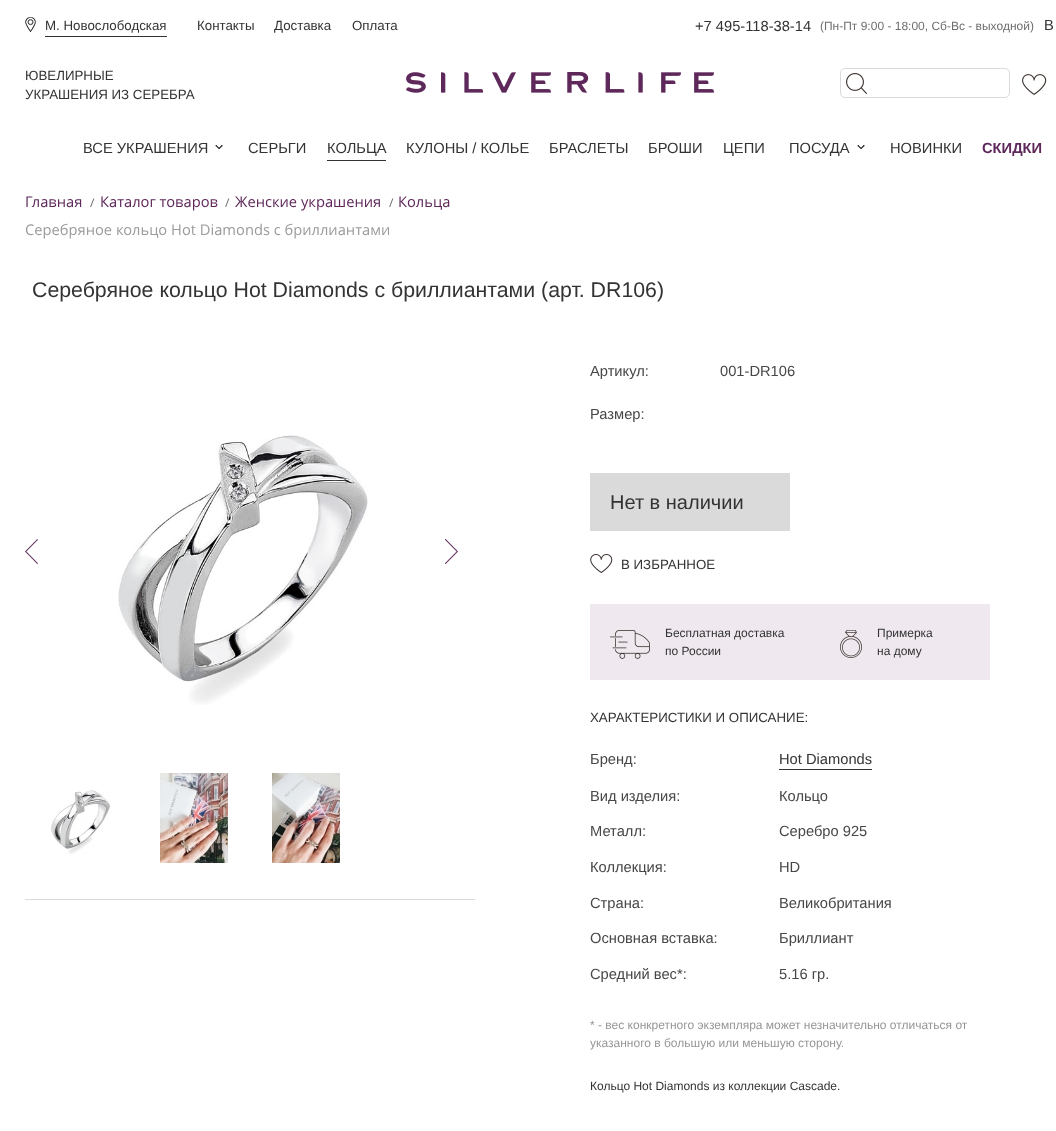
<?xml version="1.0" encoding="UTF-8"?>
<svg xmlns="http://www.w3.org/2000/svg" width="1056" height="1131">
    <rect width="100%" height="100%" fill="#FFFFFF"/>
    <image x="25" y="17" width="11" height="15" href="img_01.png"/>
    <rect x="45" y="36" width="122" height="1" fill="#333333"/>
    <text x="45" y="30" font-family="Liberation Sans" font-size="13.3" fill="#333333">М. Новослободская</text>
    <text x="197" y="30" font-family="Liberation Sans" font-size="13.3" fill="#333333">Контакты</text>
    <text x="274" y="30" font-family="Liberation Sans" font-size="13.3" fill="#333333">Доставка</text>
    <text x="352" y="30" font-family="Liberation Sans" font-size="13.3" fill="#333333">Оплата</text>
    <text x="695" y="31" font-family="Liberation Sans" font-size="14.7" fill="#333333">+7 495-118-38-14</text>
    <text x="820" y="30" font-family="Liberation Sans" font-size="12" fill="#6E6E6E">(Пн-Пт 9:00 - 18:00, Сб-Вс - выходной)</text>
    <text x="1044" y="30" font-family="Liberation Sans" font-size="14.7" fill="#333333">В</text>
    <text font-family="Liberation Sans" font-size="13.3" fill="#333333">
        <tspan x="25" y="80">ЮВЕЛИРНЫЕ</tspan>
        <tspan x="25" y="99">УКРАШЕНИЯ ИЗ СЕРЕБРА</tspan>
    </text>
    <image x="406" y="72" width="308" height="21" href="img_02.png"/>
    <image x="846" y="73" width="21" height="21" href="img_03.png"/>
    <rect x="840.5" y="68.5" width="169" height="29" rx="4.5" fill="none" stroke="#DADADA"/>
    <image x="1022" y="74" width="25" height="21" href="img_04.png"/>
    <image x="215" y="145" width="8" height="4" href="img_05.png"/>
    <text x="83" y="153" font-family="Liberation Sans" font-size="14.7" fill="#333333">ВСЕ УКРАШЕНИЯ</text>
    <text x="248" y="153" font-family="Liberation Sans" font-size="14.7" fill="#333333">СЕРЬГИ</text>
    <rect x="327" y="160" width="59" height="1" fill="#333333"/>
    <text x="327" y="153" font-family="Liberation Sans" font-size="14.7" fill="#333333">КОЛЬЦА</text>
    <text x="406" y="153" font-family="Liberation Sans" font-size="14.7" fill="#333333">КУЛОНЫ / КОЛЬЕ</text>
    <text x="549" y="153" font-family="Liberation Sans" font-size="14.7" fill="#333333">БРАСЛЕТЫ</text>
    <text x="648" y="153" font-family="Liberation Sans" font-size="14.7" fill="#333333">БРОШИ</text>
    <text x="723" y="153" font-family="Liberation Sans" font-size="14.7" fill="#333333">ЦЕПИ</text>
    <image x="857" y="145" width="8" height="4" href="img_05.png"/>
    <text x="789" y="153" font-family="Liberation Sans" font-size="14.7" fill="#333333">ПОСУДА</text>
    <text x="890" y="153" font-family="Liberation Sans" font-size="14.7" fill="#333333">НОВИНКИ</text>
    <text x="982" y="153" font-family="Liberation Sans" font-size="14.7" font-weight="700" fill="#5E285A">СКИДКИ</text>
    <text x="25" y="207" font-family="Open Sans" font-size="14.7" fill="#5E285A">Главная</text>
    <text x="90" y="207" font-family="Open Sans" font-size="12" fill="#6E6E6E">/</text>
    <text x="100" y="207" font-family="Open Sans" font-size="14.7" fill="#5E285A">Каталог товаров</text>
    <text x="225" y="207" font-family="Open Sans" font-size="12" fill="#6E6E6E">/</text>
    <text x="235" y="207" font-family="Open Sans" font-size="14.7" fill="#5E285A">Женские украшения</text>
    <text x="389" y="207" font-family="Open Sans" font-size="12" fill="#6E6E6E">/</text>
    <text x="398" y="207" font-family="Open Sans" font-size="14.7" fill="#5E285A">Кольца</text>
    <text x="25" y="235" font-family="Open Sans" font-size="14.7" fill="#9B9B9B">Серебряное кольцо Hot Diamonds с бриллиантами</text>
    <text x="32" y="297" font-family="Liberation Sans" font-size="21.3" fill="#333333">Серебряное кольцо Hot Diamonds с бриллиантами (арт. DR106)</text>
    <image x="25" y="539" width="13" height="25" href="img_06.png"/>
    <image x="118" y="435" width="250" height="270" href="img_07.png"/>
    <image x="445" y="539" width="13" height="25" href="img_08.png"/>
    <rect x="25" y="899" width="450" height="1" fill="#DADADA"/>
    <image x="51" y="790" width="59" height="64" href="img_09.png"/>
    <image x="160" y="773" width="68" height="90" href="img_10.png"/>
    <image x="272" y="773" width="68" height="90" href="img_11.png"/>
    <text x="590" y="376" font-family="Liberation Sans" font-size="14.7" fill="#474747">Артикул:</text>
    <text x="720" y="376" font-family="Liberation Sans" font-size="14.7" fill="#474747">001-DR106</text>
    <text x="590" y="419" font-family="Liberation Sans" font-size="14.7" fill="#474747">Размер:</text>
    <rect x="590" y="473" width="200" height="58" fill="#DADADA"/>
    <text x="610" y="509" font-family="Liberation Sans" font-size="20" fill="#333333">Нет в наличии</text>
    <image x="590" y="554" width="23" height="19" href="img_12.png"/>
    <text x="621" y="569" font-family="Liberation Sans" font-size="13.3" fill="#333333">В ИЗБРАННОЕ</text>
    <rect x="590" y="604" width="400" height="76" fill="#EFE9EF"/>
    <image x="610" y="630" width="40" height="29" href="img_13.png"/>
    <text font-family="Liberation Sans" font-size="12" fill="#333333">
        <tspan x="665" y="637">Бесплатная доставка</tspan>
        <tspan x="665" y="655">по России</tspan>
    </text>
    <image x="840" y="630" width="22" height="28" href="img_14.png"/>
    <text font-family="Liberation Sans" font-size="12" fill="#333333">
        <tspan x="877" y="637">Примерка</tspan>
        <tspan x="877" y="655">на дому</tspan>
    </text>
    <text x="590" y="722" font-family="Liberation Sans" font-size="13.3" fill="#333333">ХАРАКТЕРИСТИКИ И ОПИСАНИЕ:</text>
    <text x="590" y="764" font-family="Liberation Sans" font-size="14.7" fill="#474747">Бренд:</text>
    <rect x="779" y="769" width="93" height="1" fill="#333333"/>
    <text x="779" y="764" font-family="Liberation Sans" font-size="14.7" fill="#333333">Hot Diamonds</text>
    <text x="590" y="801" font-family="Liberation Sans" font-size="14.7" fill="#474747">Вид изделия:</text>
    <text x="779" y="801" font-family="Liberation Sans" font-size="14.7" fill="#474747">Кольцо</text>
    <text x="590" y="836" font-family="Liberation Sans" font-size="14.7" fill="#474747">Металл:</text>
    <text x="779" y="836" font-family="Liberation Sans" font-size="14.7" fill="#474747">Серебро 925</text>
    <text x="590" y="872" font-family="Liberation Sans" font-size="14.7" fill="#474747">Коллекция:</text>
    <text x="779" y="872" font-family="Liberation Sans" font-size="14.7" fill="#474747">HD</text>
    <text x="590" y="908" font-family="Liberation Sans" font-size="14.7" fill="#474747">Страна:</text>
    <text x="779" y="908" font-family="Liberation Sans" font-size="14.7" fill="#474747">Великобритания</text>
    <text x="590" y="943" font-family="Liberation Sans" font-size="14.7" fill="#474747">Основная вставка:</text>
    <text x="779" y="943" font-family="Liberation Sans" font-size="14.7" fill="#474747">Бриллиант</text>
    <text x="590" y="979" font-family="Liberation Sans" font-size="14.7" fill="#474747">Средний вес*:</text>
    <text x="779" y="979" font-family="Liberation Sans" font-size="14.7" fill="#474747">5.16 гр.</text>
    <text font-family="Liberation Sans" font-size="12" fill="#989599">
        <tspan x="590" y="1029">* - вес конкретного экземпляра может незначительно отличаться от</tspan>
        <tspan x="590" y="1047">указанного в большую или меньшую сторону.</tspan>
    </text>
    <text x="590" y="1090" font-family="Liberation Sans" font-size="12" fill="#333333">Кольцо Hot Diamonds из коллекции Cascade.</text>
</svg>
